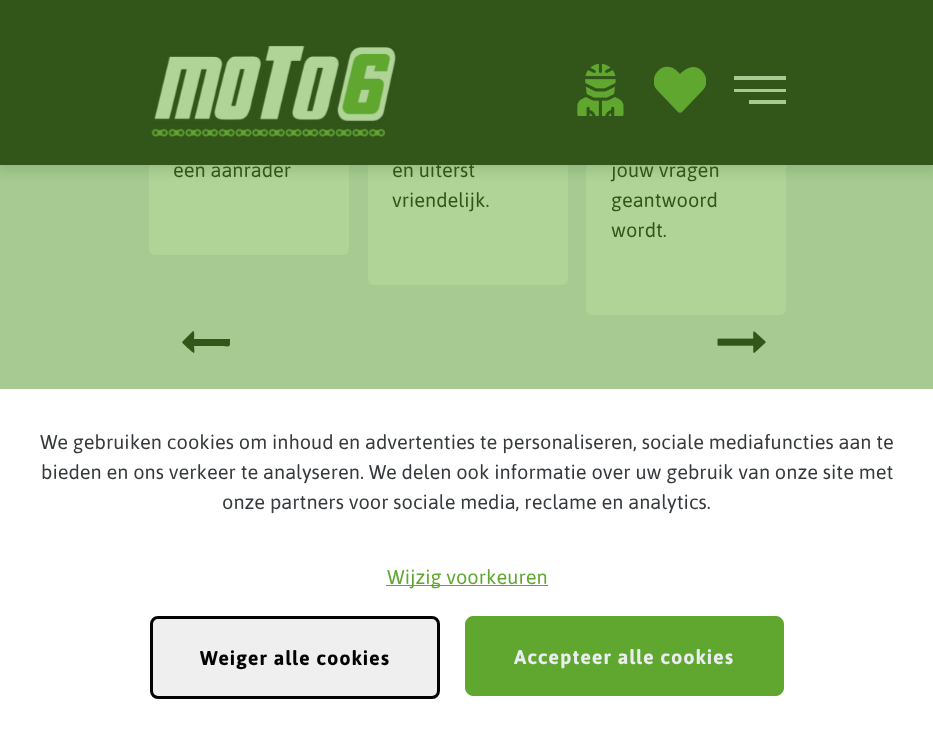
<?xml version="1.0" encoding="UTF-8"?>
<svg xmlns="http://www.w3.org/2000/svg" width="933" height="736">
    <defs>
        <filter id="blur1" x="-50%" y="-200%" width="200%" height="500%"><feGaussianBlur stdDeviation="6"/></filter>
        <clipPath id="clip1"><rect x="654" y="64" width="52" height="52"/></clipPath>
    </defs>
    <rect width="100%" height="100%" fill="#A6CA91"/>
    <rect x="149" y="-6" width="200" height="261" rx="6" fill="#B0D398"/>
    <rect x="368" y="-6" width="200" height="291" rx="6" fill="#B0D398"/>
    <rect x="586" y="-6" width="200" height="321" rx="6" fill="#B0D398"/>
    <rect x="-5" y="-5" width="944" height="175" fill="#32551A" fill-opacity="0.18" filter="url(#blur1)"/>
    <rect x="0" y="0" width="933" height="165" fill="#32551A"/>
    <image x="151" y="45" width="245" height="92" href="img_01.png"/>
    <image x="577" y="64" width="47" height="52" href="img_02.png"/>
    <g clip-path="url(#clip1)">
        <path d="M 701 70 C 694 64 686 68 680 74 L 678 72 C 673 66 664 65 659 70 C 652 76 652 86 658 91 L 678 112 C 679 113 681 113 682 112 L 702 91 C 708 86 708 76 701 70 Z" fill="#60A730"/>
    </g>
    <rect x="734" y="76" width="52" height="4" fill="#A6CA91"/>
    <rect x="734" y="89" width="52" height="3" fill="#A6CA91"/>
    <rect x="749" y="100" width="37" height="4" fill="#A6CA91"/>
    <text x="173" y="177" font-family="Asap" font-size="20" fill="#32551A">een aanrader</text>
    <text font-family="Asap" font-size="20" fill="#32551A">
        <tspan x="392" y="177">en uiterst</tspan>
        <tspan x="392" y="207">vriendelijk.</tspan>
    </text>
    <text font-family="Asap" font-size="20" fill="#32551A">
        <tspan x="611" y="177">jouw vragen</tspan>
        <tspan x="611" y="207">geantwoord</tspan>
        <tspan x="611" y="237">wordt.</tspan>
    </text>
    <path d="M 230 339 C 230 349 231 346 217 346 H 194 C 194 347 195 352 194 353 C 193 353 182 343 182 342 L 193 331 C 195 331 194 338 194 339 H 229 Z" fill="#32551A"/>
    <image x="717" y="331" width="49" height="22" href="img_03.png"/>
    <rect x="0" y="389" width="933" height="347" fill="#FFFFFF"/>
    <text x="40" y="449" font-family="Asap" font-size="20" fill="#373A3C">We gebruiken cookies om inhoud en advertenties te personaliseren, sociale mediafuncties aan te</text>
    <text x="41" y="479" font-family="Asap" font-size="20" fill="#373A3C">bieden en ons verkeer te analyseren. We delen ook informatie over uw gebruik van onze site met</text>
    <text x="222" y="509" font-family="Asap" font-size="20" fill="#373A3C">onze partners voor sociale media, reclame en analytics.</text>
    <rect x="386" y="585" width="162" height="1" fill="#60A730"/>
    <text x="387" y="584" font-family="Asap" font-size="20" fill="#60A730">Wijzig voorkeuren</text>
    <rect x="151.5" y="617.5" width="287" height="80" rx="6.5" fill="#EFEFEF" stroke="#030304" stroke-width="3"/>
    <text x="200" y="665" font-family="Asap" font-size="20" font-weight="700" letter-spacing="0.9" fill="#030304">Weiger alle cookies</text>
    <rect x="465.5" y="616.5" width="318" height="79" rx="7.5" fill="#60A730" stroke="#60A730"/>
    <text x="514" y="664" font-family="Asap" font-size="20" font-weight="700" letter-spacing="0.9" fill="#EBECF1">Accepteer alle cookies</text>
</svg>
